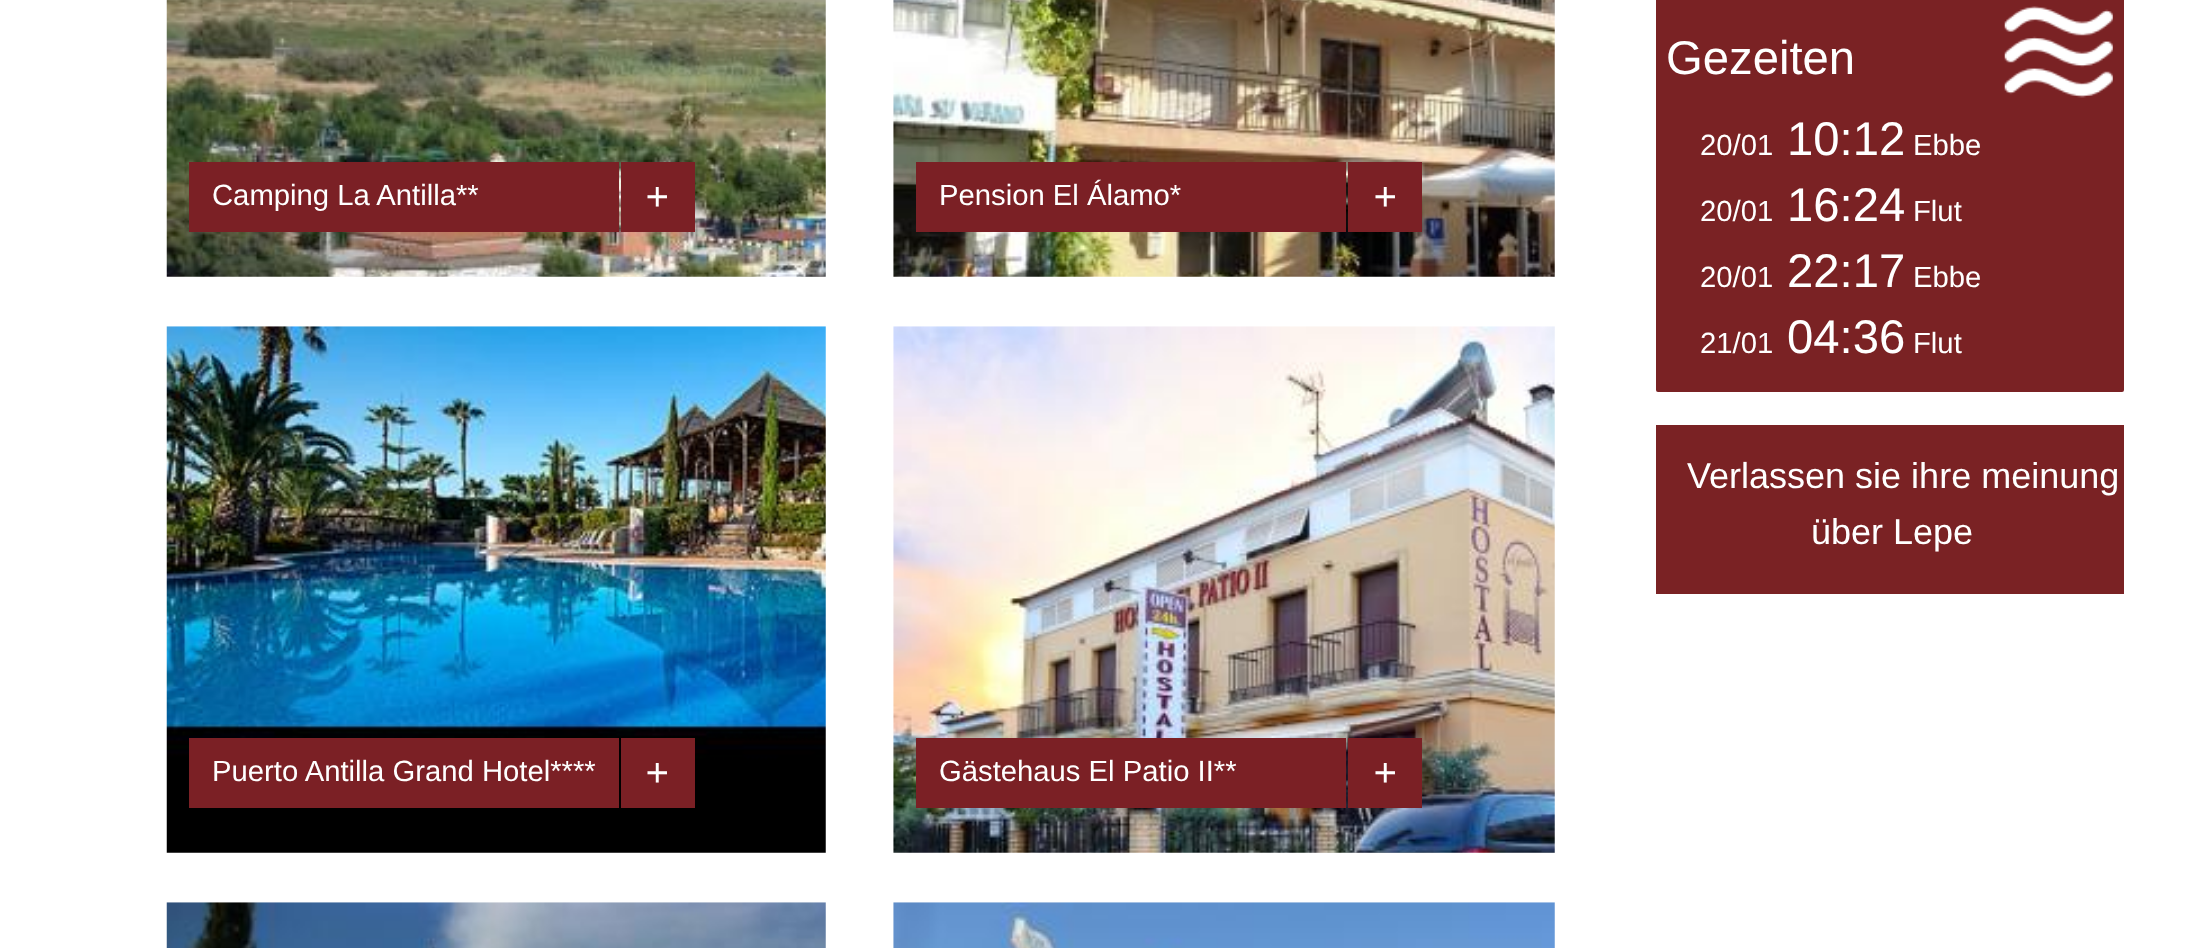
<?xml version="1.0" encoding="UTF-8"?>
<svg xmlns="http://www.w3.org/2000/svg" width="2210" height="948">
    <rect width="100%" height="100%" fill="#FFFFFF"/>
    <image x="166" y="0" width="660" height="277" href="img_01.png"/>
    <rect x="189" y="162" width="430" height="70" fill="#7B2025"/>
    <text x="212" y="205" font-family="Liberation Sans" font-size="29.25" fill="#FFFFFF">Camping La Antilla**</text>
    <rect x="621" y="162" width="74" height="70" fill="#7B2025"/>
    <text x="645" y="210" font-family="Liberation Sans" font-size="40" font-style="italic" fill="#FFFFFF">+</text>
    <image x="893" y="0" width="662" height="277" href="img_02.png"/>
    <rect x="916" y="162" width="430" height="70" fill="#7B2025"/>
    <text x="939" y="205" font-family="Liberation Sans" font-size="29.25" fill="#FFFFFF">Pension El Álamo*</text>
    <rect x="1348" y="162" width="74" height="70" fill="#7B2025"/>
    <text x="1373" y="210" font-family="Liberation Sans" font-size="40" font-style="italic" fill="#FFFFFF">+</text>
    <image x="166" y="326" width="660" height="527" href="img_03.png"/>
    <rect x="189" y="738" width="430" height="70" fill="#7B2025"/>
    <text x="212" y="781" font-family="Liberation Sans" font-size="29.25" fill="#FFFFFF">Puerto Antilla Grand Hotel****</text>
    <rect x="621" y="738" width="74" height="70" fill="#7B2025"/>
    <text x="645" y="786" font-family="Liberation Sans" font-size="40" font-style="italic" fill="#FFFFFF">+</text>
    <image x="893" y="326" width="662" height="527" href="img_04.png"/>
    <rect x="916" y="738" width="430" height="70" fill="#7B2025"/>
    <text x="939" y="781" font-family="Liberation Sans" font-size="29.25" fill="#FFFFFF">Gästehaus El Patio II**</text>
    <rect x="1348" y="738" width="74" height="70" fill="#7B2025"/>
    <text x="1373" y="786" font-family="Liberation Sans" font-size="40" font-style="italic" fill="#FFFFFF">+</text>
    <image x="166" y="902" width="660" height="46" href="img_05.png"/>
    <image x="893" y="902" width="662" height="46" href="img_06.png"/>
    <rect x="1656" y="-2" width="468" height="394" rx="2" fill="#7A2224"/>
    <text x="1666" y="74" font-family="Liberation Sans" font-size="47.25" fill="#FFFFFF">Gezeiten</text>
    <image x="2004" y="6" width="109" height="92" href="img_07.png"/>
    <text x="1700" y="155" font-family="Liberation Sans" font-size="29.25" fill="#FFFFFF">20/01</text>
    <text x="1787" y="155" font-family="Liberation Sans" font-size="47.25" fill="#FFFFFF">10:12</text>
    <text x="1913" y="155" font-family="Liberation Sans" font-size="29.25" fill="#FFFFFF">Ebbe</text>
    <text x="1700" y="221" font-family="Liberation Sans" font-size="29.25" fill="#FFFFFF">20/01</text>
    <text x="1787" y="221" font-family="Liberation Sans" font-size="47.25" fill="#FFFFFF">16:24</text>
    <text x="1913" y="221" font-family="Liberation Sans" font-size="29.25" fill="#FFFFFF">Flut</text>
    <text x="1700" y="287" font-family="Liberation Sans" font-size="29.25" fill="#FFFFFF">20/01</text>
    <text x="1787" y="287" font-family="Liberation Sans" font-size="47.25" fill="#FFFFFF">22:17</text>
    <text x="1913" y="287" font-family="Liberation Sans" font-size="29.25" fill="#FFFFFF">Ebbe</text>
    <text x="1700" y="353" font-family="Liberation Sans" font-size="29.25" fill="#FFFFFF">21/01</text>
    <text x="1787" y="353" font-family="Liberation Sans" font-size="47.25" fill="#FFFFFF">04:36</text>
    <text x="1913" y="353" font-family="Liberation Sans" font-size="29.25" fill="#FFFFFF">Flut</text>
    <rect x="1656" y="425" width="468" height="169" fill="#7A2224"/>
    <text x="1687" y="488" font-family="Liberation Sans" font-size="36" fill="#FFFFFF">Verlassen sie ihre meinung</text>
    <text x="1811" y="544" font-family="Liberation Sans" font-size="36" fill="#FFFFFF">über Lepe</text>
</svg>
